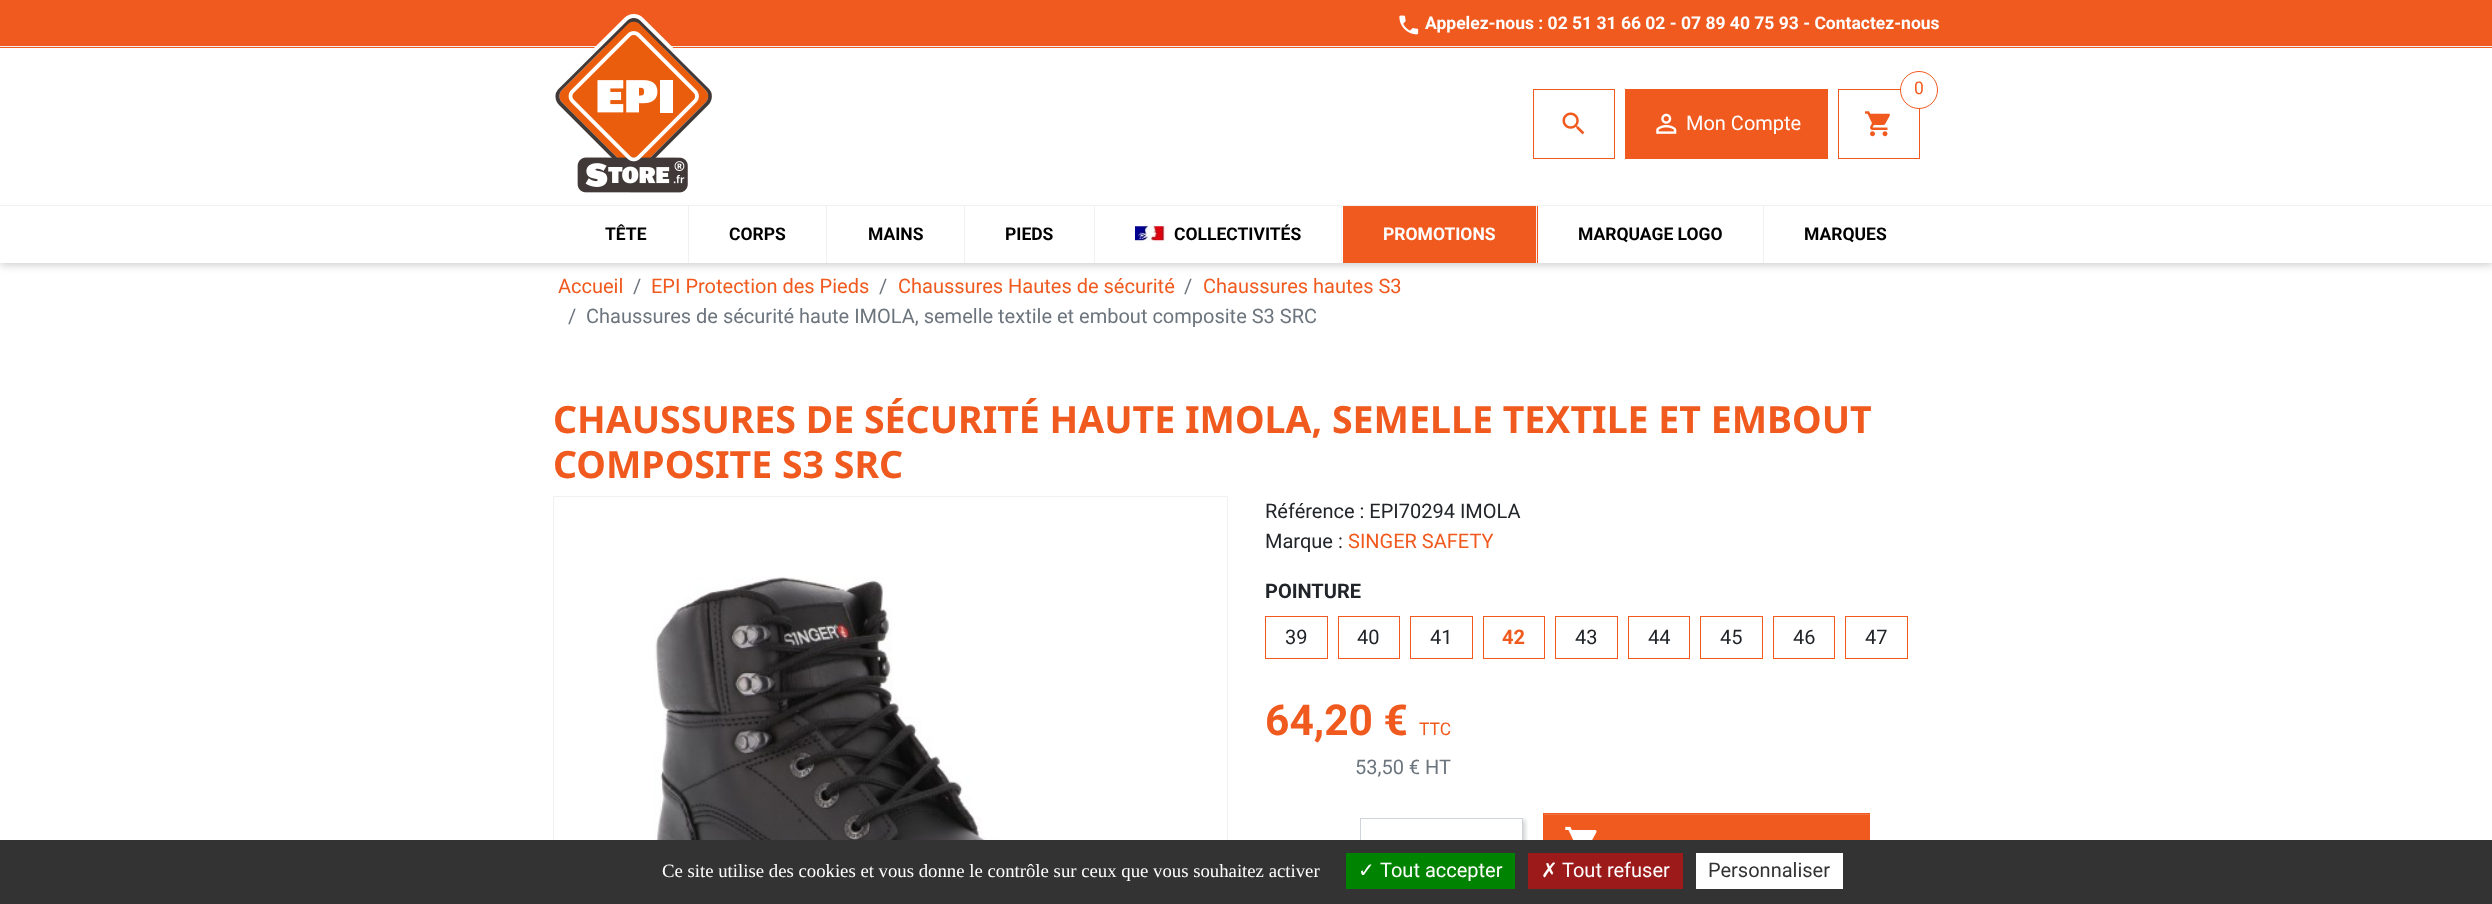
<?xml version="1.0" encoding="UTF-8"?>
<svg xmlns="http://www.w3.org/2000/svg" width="2492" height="904">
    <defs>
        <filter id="blur1" x="-50%" y="-200%" width="200%" height="500%"><feGaussianBlur stdDeviation="4"/></filter>
        <clipPath id="clip1"><rect x="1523" y="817" width="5" height="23"/></clipPath>
        <filter id="blur2" x="-50%" y="-200%" width="200%" height="500%"><feGaussianBlur stdDeviation="2.5"/></filter>
    </defs>
    <rect width="100%" height="100%" fill="#FFFFFF"/>
    <rect x="0" y="3" width="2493" height="262" fill="#000000" fill-opacity="0.2" filter="url(#blur1)"/>
    <rect x="0" y="48" width="2492" height="215" fill="#FFFFFF"/>
    <rect x="0" y="0" width="2492" height="48" fill="#F05A1F"/>
    <rect x="0" y="46" width="2492" height="1" fill="#F1F1F1"/>
    <image x="1399" y="15" width="20" height="20" href="img_01.png"/>
    <text x="1425" y="29" font-family="Roboto" font-size="17.5" font-weight="700" fill="#FFFFFF">Appelez-nous : 02 51 31 66 02 - 07 89 40 75 93 - Contactez-nous</text>
    <image x="555" y="14" width="157" height="179" href="img_02.png"/>
    <rect x="1533.5" y="89.5" width="81" height="69" fill="none" stroke="#F05A1F"/>
    <image x="1562" y="112" width="23" height="23" href="img_03.png"/>
    <rect x="1625" y="89" width="203" height="70" fill="#F05A1F"/>
    <image x="1656" y="113" width="21" height="21" href="img_04.png"/>
    <text x="1686" y="130" font-family="Roboto" font-size="20" fill="#FFFFFF">Mon Compte</text>
    <rect x="1838.5" y="89.5" width="81" height="69" fill="none" stroke="#F05A1F"/>
    <circle cx="1919" cy="90" r="18.5" fill="#FFFFFF" stroke="#F05A1F"/>
    <text x="1914" y="94" font-family="Roboto" font-size="17.5" fill="#F05A1F">0</text>
    <image x="1865" y="111" width="25" height="26" href="img_05.png"/>
    <rect x="0" y="205" width="2492" height="1" fill="#F1F1F1"/>
    <rect x="688" y="206" width="1" height="57" fill="#F1F1F1"/>
    <text x="605" y="240" font-family="Roboto" font-size="17.5" font-weight="700" fill="#000000">TÊTE</text>
    <rect x="826" y="206" width="1" height="57" fill="#F1F1F1"/>
    <text x="729" y="240" font-family="Roboto" font-size="17.5" font-weight="700" fill="#000000">CORPS</text>
    <rect x="964" y="206" width="1" height="57" fill="#F1F1F1"/>
    <text x="868" y="240" font-family="Roboto" font-size="17.5" font-weight="700" fill="#000000">MAINS</text>
    <rect x="1094" y="206" width="1" height="57" fill="#F1F1F1"/>
    <text x="1005" y="240" font-family="Roboto" font-size="17.5" font-weight="700" fill="#000000">PIEDS</text>
    <rect x="1341" y="206" width="1" height="57" fill="#F1F1F1"/>
    <image x="1135" y="226" width="34" height="18" href="img_06.png"/>
    <text x="1174" y="240" font-family="Roboto" font-size="17.5" font-weight="700" fill="#000000">COLLECTIVITÉS</text>
    <rect x="1343" y="206" width="195" height="57" fill="#F05A1F"/>
    <rect x="1536" y="206" width="1" height="57" fill="#F1F1F1"/>
    <text x="1383" y="240" font-family="Roboto" font-size="17.5" font-weight="700" fill="#FFFFFF">PROMOTIONS</text>
    <rect x="1763" y="206" width="1" height="57" fill="#F1F1F1"/>
    <text x="1578" y="240" font-family="Roboto" font-size="17.5" font-weight="700" fill="#000000">MARQUAGE LOGO</text>
    <text x="1804" y="240" font-family="Roboto" font-size="17.5" font-weight="700" fill="#000000">MARQUES</text>
    <text x="558" y="293" font-family="Roboto" font-size="20" fill="#F05A1F">Accueil</text>
    <text x="633" y="293" font-family="Roboto" font-size="20" fill="#6C757D">/</text>
    <text x="651" y="293" font-family="Roboto" font-size="20" fill="#F05A1F">EPI Protection des Pieds</text>
    <text x="879" y="293" font-family="Roboto" font-size="20" fill="#6C757D">/</text>
    <text x="898" y="293" font-family="Roboto" font-size="20" fill="#F05A1F">Chaussures Hautes de sécurité</text>
    <text x="1184" y="293" font-family="Roboto" font-size="20" fill="#6C757D">/</text>
    <text x="1203" y="293" font-family="Roboto" font-size="20" fill="#F05A1F">Chaussures hautes S3</text>
    <text x="568" y="323" font-family="Roboto" font-size="20" fill="#6C757D">/</text>
    <text x="586" y="323" font-family="Roboto" font-size="20" fill="#6C757D">Chaussures de sécurité haute IMOLA, semelle textile et embout composite S3 SRC</text>
    <text font-family="Noto Sans" font-size="37.5" font-weight="700" fill="#F05A1F">
        <tspan x="553" y="433">CHAUSSURES DE SÉCURITÉ HAUTE IMOLA, SEMELLE TEXTILE ET EMBOUT</tspan>
        <tspan x="553" y="478">COMPOSITE S3 SRC</tspan>
    </text>
    <rect x="553.5" y="496.5" width="674" height="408" fill="none" stroke="#F1F1F1"/>
    <image x="644" y="577" width="470" height="263" href="img_07.png"/>
    <text font-family="Roboto" font-size="20" fill="#212529">
        <tspan x="1265" y="518">Référence : EPI70294 IMOLA</tspan>
        <tspan x="1265" y="548">Marque :</tspan>
    </text>
    <text x="1348" y="548" font-family="Roboto" font-size="20" fill="#F05A1F">SINGER SAFETY</text>
    <text x="1265" y="598" font-family="Roboto" font-size="20" font-weight="700" fill="#212529">POINTURE</text>
    <rect x="1265.5" y="616.5" width="62" height="42" fill="none" stroke="#F05A1F"/>
    <text x="1285" y="644" font-family="Roboto" font-size="20" fill="#212529">39</text>
    <rect x="1338.5" y="616.5" width="61" height="42" fill="none" stroke="#F05A1F"/>
    <text x="1357" y="644" font-family="Roboto" font-size="20" fill="#212529">40</text>
    <rect x="1410.5" y="616.5" width="62" height="42" fill="none" stroke="#F05A1F"/>
    <text x="1430" y="644" font-family="Roboto" font-size="20" fill="#212529">41</text>
    <rect x="1483.5" y="616.5" width="61" height="42" fill="none" stroke="#F05A1F"/>
    <text x="1502" y="644" font-family="Roboto" font-size="20" font-weight="700" fill="#F05A1F">42</text>
    <rect x="1555.5" y="616.5" width="62" height="42" fill="none" stroke="#F05A1F"/>
    <text x="1575" y="644" font-family="Roboto" font-size="20" fill="#212529">43</text>
    <rect x="1628.5" y="616.5" width="61" height="42" fill="none" stroke="#F05A1F"/>
    <text x="1648" y="644" font-family="Roboto" font-size="20" fill="#212529">44</text>
    <rect x="1700.5" y="616.5" width="62" height="42" fill="none" stroke="#F05A1F"/>
    <text x="1720" y="644" font-family="Roboto" font-size="20" fill="#212529">45</text>
    <rect x="1773.5" y="616.5" width="61" height="42" fill="none" stroke="#F05A1F"/>
    <text x="1793" y="644" font-family="Roboto" font-size="20" fill="#212529">46</text>
    <rect x="1845.5" y="616.5" width="62" height="42" fill="none" stroke="#F05A1F"/>
    <text x="1865" y="644" font-family="Roboto" font-size="20" fill="#212529">47</text>
    <text x="1265" y="735" font-family="Roboto" font-size="42.5" font-weight="700" fill="#F05A1F">64,20 €</text>
    <text x="1419" y="735" font-family="Roboto" font-size="17.5" fill="#F05A1F">TTC</text>
    <text x="1355" y="774" font-family="Roboto" font-size="20" fill="#6C757D">53,50 € HT</text>
    <g clip-path="url(#clip1)">
        <rect x="1363" y="820" width="162" height="50" fill="#000000" fill-opacity="0.2" filter="url(#blur2)"/>
    </g>
    <rect x="1360.5" y="818.5" width="162" height="49" fill="none" stroke="#CED4DA"/>
    <rect x="1543" y="813" width="327" height="27" fill="#F05A1F"/>
    <rect x="1544" y="814" width="325" height="1" fill="#F27341"/>
    <image x="1565" y="826" width="32" height="14" href="img_08.png"/>
    <rect x="0" y="840" width="2492" height="64" fill="#333333"/>
    <text x="662" y="877" font-family="Liberation Serif" font-size="18.75" fill="#FFFFFF">Ce site utilise des cookies et vous donne le contrôle sur ceux que vous souhaitez activer</text>
    <rect x="1346" y="853" width="169" height="36" fill="#008300"/>
    <text x="1358" y="877" font-family="DejaVu Sans" font-size="20" fill="#FFFFFF">✓</text>
    <text x="1380" y="877" font-family="Roboto" font-size="20" fill="#FFFFFF">Tout accepter</text>
    <rect x="1528" y="853" width="155" height="36" fill="#9C1A1A"/>
    <text x="1541" y="877" font-family="DejaVu Sans" font-size="20" fill="#FFFFFF">✗</text>
    <text x="1562" y="877" font-family="Roboto" font-size="20" fill="#FFFFFF">Tout refuser</text>
    <rect x="1696" y="853" width="147" height="36" fill="#FFFFFF"/>
    <text x="1708" y="877" font-family="Roboto" font-size="20" fill="#333333">Personnaliser</text>
</svg>
